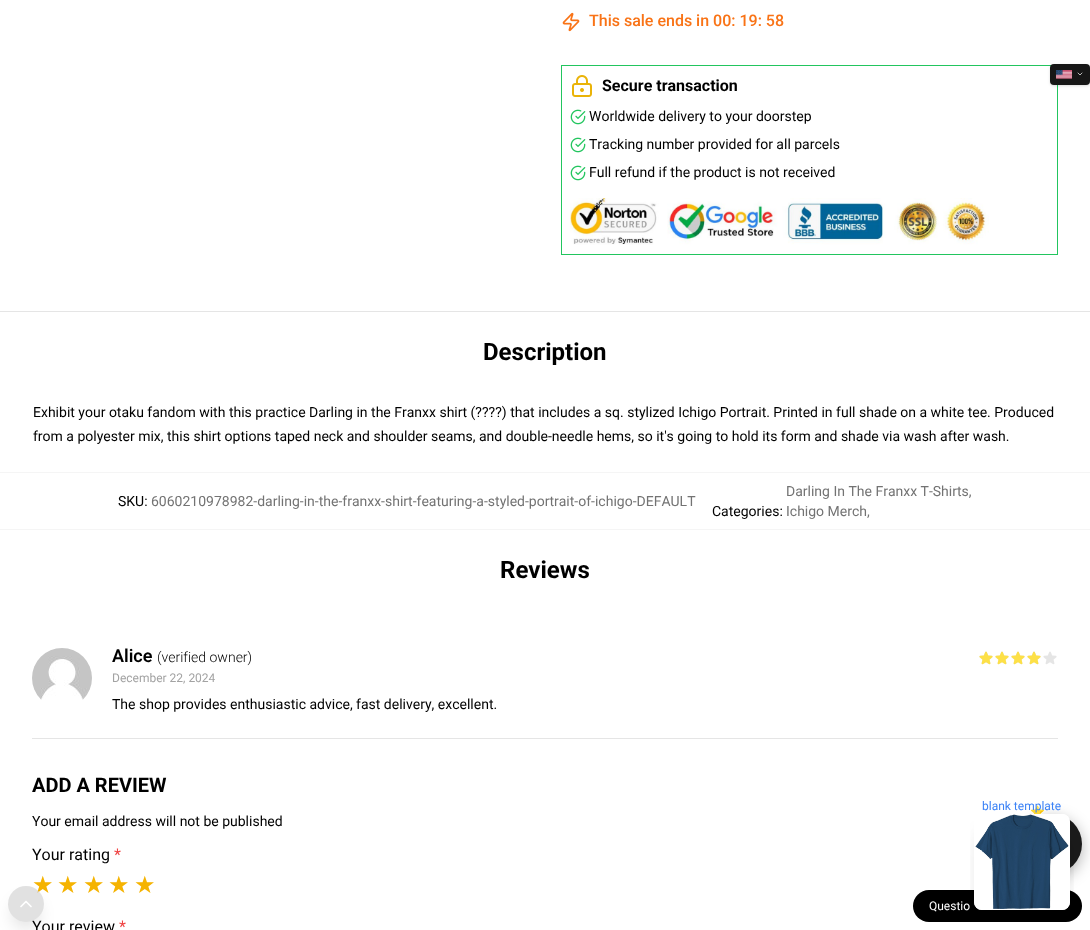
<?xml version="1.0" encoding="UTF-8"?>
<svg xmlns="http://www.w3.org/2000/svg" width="1090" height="930">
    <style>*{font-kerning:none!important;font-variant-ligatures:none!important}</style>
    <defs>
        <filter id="blur1" x="-50%" y="-200%" width="200%" height="500%"><feGaussianBlur stdDeviation="7.5"/></filter>
        <clipPath id="clip1"><rect x="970" y="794" width="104" height="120"/></clipPath>
        <filter id="blur2" x="-50%" y="-200%" width="200%" height="500%"><feGaussianBlur stdDeviation="5"/></filter>
        <filter id="blur3" x="-50%" y="-200%" width="200%" height="500%"><feGaussianBlur stdDeviation="12.5"/></filter>
        <filter id="blur4" x="-50%" y="-200%" width="200%" height="500%"><feGaussianBlur stdDeviation="1"/></filter>
        <filter id="blur5" x="-50%" y="-200%" width="200%" height="500%"><feGaussianBlur stdDeviation="1.5"/></filter>
        <clipPath id="clip2"><path d="M 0 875 H 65 V 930 H 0 Z M 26 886 C 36 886 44 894 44 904 C 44 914 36 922 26 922 C 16 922 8 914 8 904 C 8 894 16 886 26 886 Z" clip-rule="evenodd"/></clipPath>
    </defs>
    <rect width="100%" height="100%" fill="#FFFFFF"/>
    <image x="562" y="12" width="18" height="20" href="img_01.png"/>
    <text x="589" y="26" font-family="Roboto" font-size="16" font-weight="500" fill="#F97316">This sale ends in 00: 19: 58</text>
    <rect x="561.5" y="65.5" width="496" height="189" fill="none" stroke="#22C55E"/>
    <image x="572" y="75" width="20" height="22" href="img_02.png"/>
    <text x="602" y="91" font-family="Roboto" font-size="16" font-weight="700" fill="#000000">Secure transaction</text>
    <image x="570" y="109" width="16" height="16" href="img_03.png"/>
    <text x="589" y="121" font-family="Roboto" font-size="14" fill="#000000">Worldwide delivery to your doorstep</text>
    <image x="570" y="137" width="16" height="16" href="img_03.png"/>
    <text x="589" y="149" font-family="Roboto" font-size="14" fill="#000000">Tracking number provided for all parcels</text>
    <image x="570" y="165" width="16" height="16" href="img_03.png"/>
    <text x="589" y="177" font-family="Roboto" font-size="14" fill="#000000">Full refund if the product is not received</text>
    <image x="570" y="198" width="419" height="47" href="img_04.png"/>
    <rect x="913" y="890" width="169" height="32" rx="16" fill="#000000"/>
    <rect x="1022" y="818" width="60" height="60" rx="30" fill="#000000" fill-opacity="0.3" filter="url(#blur1)"/>
    <circle cx="1052" cy="844" r="30" fill="#1A1A1A"/>
    <g clip-path="url(#clip1)">
        <rect x="980" y="828" width="84" height="84" rx="2" fill="#000000" fill-opacity="0.1" filter="url(#blur2)"/>
        <rect x="979" y="839" width="86" height="86" rx="3" fill="#000000" fill-opacity="0.1" filter="url(#blur3)"/>
    </g>
    <text x="1030" y="816" font-family="Noto Color Emoji" font-size="12" font-weight="700" fill="#FFD700">⭐</text>
    <rect x="974" y="814" width="96" height="96" rx="8" fill="#FFFFFF"/>
    <image x="974" y="814" width="96" height="96" href="img_05.png"/>
    <text x="982" y="810" font-family="Roboto" font-size="12" fill="#3B82F6">blank template</text>
    <rect x="1051" y="66" width="38" height="19" rx="3" fill="#000000" fill-opacity="0.1" filter="url(#blur4)"/>
    <rect x="1050" y="65" width="40" height="21" rx="4" fill="#000000" fill-opacity="0.1" filter="url(#blur5)"/>
    <rect x="1050" y="64" width="40" height="21" rx="4" fill="#171717"/>
    <image x="1056" y="70" width="16" height="9" href="img_06.png"/>
    <path d="M 1078 73 L 1080 75 L 1082 73" fill="none" stroke="#FFFFFF" stroke-width="0.7" stroke-linecap="round" stroke-linejoin="round"/>
    <rect x="0" y="311" width="1090" height="1" fill="#E5E5E5"/>
    <text x="483" y="360" font-family="Roboto" font-size="24" font-weight="700" fill="#000000">Description</text>
    <text font-family="Roboto" font-size="14" fill="#000000">
        <tspan x="33" y="417">Exhibit your otaku fandom with this practice Darling in the Franxx shirt (????) that includes a sq. stylized Ichigo Portrait. Printed in full shade on a white tee. Produced</tspan>
        <tspan x="33" y="441">from a polyester mix, this shirt options taped neck and shoulder seams, and double-needle hems, so it's going to hold its form and shade via wash after wash.</tspan>
    </text>
    <rect x="0" y="472" width="1090" height="1" fill="#F5F5F5"/>
    <rect x="0" y="529" width="1090" height="1" fill="#F5F5F5"/>
    <text x="118" y="506" font-family="Roboto" font-size="14" fill="#000000">SKU:</text>
    <text x="151" y="506" font-family="Roboto" font-size="14" fill="#737373">6060210978982-darling-in-the-franxx-shirt-featuring-a-styled-portrait-of-ichigo-DEFAULT</text>
    <text x="712" y="516" font-family="Roboto" font-size="14" fill="#000000">Categories:</text>
    <text font-family="Roboto" font-size="14" fill="#737373">
        <tspan x="786" y="496">Darling In The Franxx T-Shirts,</tspan>
        <tspan x="786" y="516">Ichigo Merch,</tspan>
    </text>
    <text x="500" y="578" font-family="Roboto" font-size="24" font-weight="700" fill="#000000">Reviews</text>
    <rect x="32" y="738" width="1026" height="1" fill="#E5E5E5"/>
    <image x="32" y="648" width="60" height="52" href="img_07.png"/>
    <text x="112" y="662" font-family="Roboto" font-size="18" font-weight="600" fill="#000000">Alice</text>
    <text x="157" y="662" font-family="Roboto" font-size="14" font-weight="300" fill="#000000">(verified owner)</text>
    <text x="112" y="682" font-family="Roboto" font-size="12" fill="#A3A3A3">December 22, 2024</text>
    <text x="112" y="709" font-family="Roboto" font-size="14" fill="#000000">The shop provides enthusiastic advice, fast delivery, excellent.</text>
    <image x="979" y="651" width="14" height="14" href="img_08.png"/>
    <image x="995" y="651" width="14" height="14" href="img_08.png"/>
    <image x="1011" y="651" width="14" height="14" href="img_08.png"/>
    <image x="1027" y="651" width="14" height="14" href="img_08.png"/>
    <image x="1043" y="651" width="14" height="14" href="img_08.png"/>
    <image x="979" y="651" width="14" height="14" href="img_09.png"/>
    <image x="995" y="651" width="14" height="14" href="img_09.png"/>
    <image x="1011" y="651" width="14" height="14" href="img_09.png"/>
    <image x="1027" y="651" width="14" height="14" href="img_09.png"/>
    <text x="32" y="792" font-family="Roboto" font-size="20" font-weight="700" fill="#000000">ADD A REVIEW</text>
    <text x="32" y="826" font-family="Roboto" font-size="14" fill="#000000">Your email address will not be published</text>
    <text x="32" y="860" font-family="Roboto" font-size="16" fill="#000000">Your rating</text>
    <text x="114" y="860" font-family="Roboto" font-size="16" fill="#EF4444">*</text>
    <text x="32" y="893" font-family="DejaVu Sans" font-size="24" fill="#F5B301">★</text>
    <text x="57" y="893" font-family="DejaVu Sans" font-size="24" fill="#F5B301">★</text>
    <text x="83" y="893" font-family="DejaVu Sans" font-size="24" fill="#F5B301">★</text>
    <text x="108" y="893" font-family="DejaVu Sans" font-size="24" fill="#F5B301">★</text>
    <text x="134" y="893" font-family="DejaVu Sans" font-size="24" fill="#F5B301">★</text>
    <text x="32" y="932" font-family="Roboto" font-size="16" fill="#000000">Your review</text>
    <text x="119" y="932" font-family="Roboto" font-size="16" fill="#EF4444">*</text>
    <g clip-path="url(#clip2)">
        <rect x="11" y="899" width="30" height="30" rx="15" fill="#000000" fill-opacity="0.1" filter="url(#blur1)"/>
    </g>
    <circle cx="26" cy="904" r="18" fill="#D4D4D4" fill-opacity="0.7"/>
    <path d="M 31 906.5 L 26 901.5 L 21 906.5" fill="none" stroke="#FFFFFF" stroke-width="1.7" stroke-linecap="round" stroke-linejoin="round"/>
    <text x="929" y="910" font-family="Roboto" font-size="12" fill="#FFFFFF">Questio</text>
</svg>
